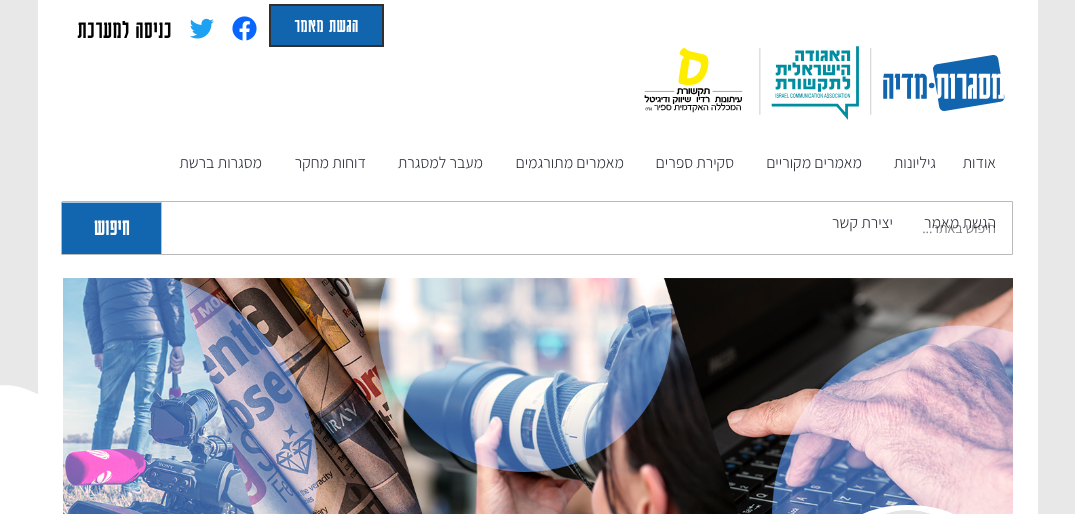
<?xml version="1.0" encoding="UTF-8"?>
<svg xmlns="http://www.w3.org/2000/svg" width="1075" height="514">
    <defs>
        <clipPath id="clip1"><rect x="62" y="202" width="100" height="52"/></clipPath>
    </defs>
    <rect width="100%" height="100%" fill="#FFFFFF"/>
    <image x="0" y="0" width="1075" height="514" href="img_01.png"/>
    <rect x="38" y="0" width="1000" height="263" fill="#FFFFFF"/>
    <rect x="270" y="5" width="113" height="41" fill="#1165AE" stroke="#303030" stroke-width="2"/>
    <text x="359" y="32" font-family="Karantina" font-size="20" letter-spacing="1" direction="rtl" fill="#FFFFFF">הגשת מאמר</text>
    <image x="232" y="16" width="25" height="25" href="img_02.png"/>
    <image x="190" y="18" width="24" height="21" href="img_03.png"/>
    <text x="172" y="38" font-family="Karantina" font-size="26" letter-spacing="1" direction="rtl" fill="#000000">כניסה למערכת</text>
    <image x="644" y="46" width="361" height="74" href="img_04.png"/>
    <text x="996" y="168" font-family="Assistant" font-size="16" font-weight="300" direction="rtl" fill="#151823">אודות</text>
    <text x="936" y="168" font-family="Assistant" font-size="16" font-weight="300" direction="rtl" fill="#151823">גיליונות</text>
    <text x="862" y="168" font-family="Assistant" font-size="16" font-weight="300" direction="rtl" fill="#151823">מאמרים מקוריים</text>
    <text x="734" y="168" font-family="Assistant" font-size="16" font-weight="300" direction="rtl" fill="#151823">סקירת ספרים</text>
    <text x="624" y="168" font-family="Assistant" font-size="16" font-weight="300" direction="rtl" fill="#151823">מאמרים מתורגמים</text>
    <text x="483" y="168" font-family="Assistant" font-size="16" font-weight="300" direction="rtl" fill="#151823">מעבר למסגרת</text>
    <text x="366" y="168" font-family="Assistant" font-size="16" font-weight="300" direction="rtl" fill="#151823">דוחות מחקר</text>
    <text x="262" y="168" font-family="Assistant" font-size="16" font-weight="300" direction="rtl" fill="#151823">מסגרות ברשת</text>
    <path d="M 63 201.5 H 1012 C 1012.5 201.5 1012.5 201.5 1012.5 202 V 254 C 1012.5 254.5 1012.5 254.5 1012 254.5 H 62 C 61.5 254.5 61.5 254.5 61.5 254 V 203 C 61.5 202 62 201.5 63 201.5 Z" fill="none" stroke="#B9B9B9"/>
    <text x="996" y="233" font-family="Assistant" font-size="14" direction="rtl" fill="#7D7D7D">חיפוש באתר...</text>
    <text x="996" y="228" font-family="Assistant" font-size="16" font-weight="300" direction="rtl" fill="#151823">הגשת מאמר</text>
    <text x="893" y="228" font-family="Assistant" font-size="16" font-weight="300" direction="rtl" fill="#151823">יצירת קשר</text>
    <path d="M 63 202 H 162 V 254 H 62 V 203 C 62 202.5 62.5 202 63 202 Z" fill="#1265AF"/>
    <g clip-path="url(#clip1)">
        <path d="M 63 202 H 261 V 254 H 161 V 203 H 62 Z" fill="#FFFFFF" fill-opacity="0.64"/>
    </g>
    <text x="130" y="235" font-family="Karantina" font-size="24" letter-spacing="0.5" direction="rtl" fill="#FFFFFF">חיפוש</text>
    <rect x="38" y="263" width="1000" height="251" fill="#FFFFFF"/>
    <image x="63" y="278" width="950" height="236" href="img_05.png"/>
    <rect x="835.5" y="507.5" width="145" height="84" rx="72.5" fill="#FFFFFF" stroke="#FFFFFF" stroke-width="5"/>
    <image x="886" y="510" width="44" height="4" href="img_06.png"/>
</svg>
